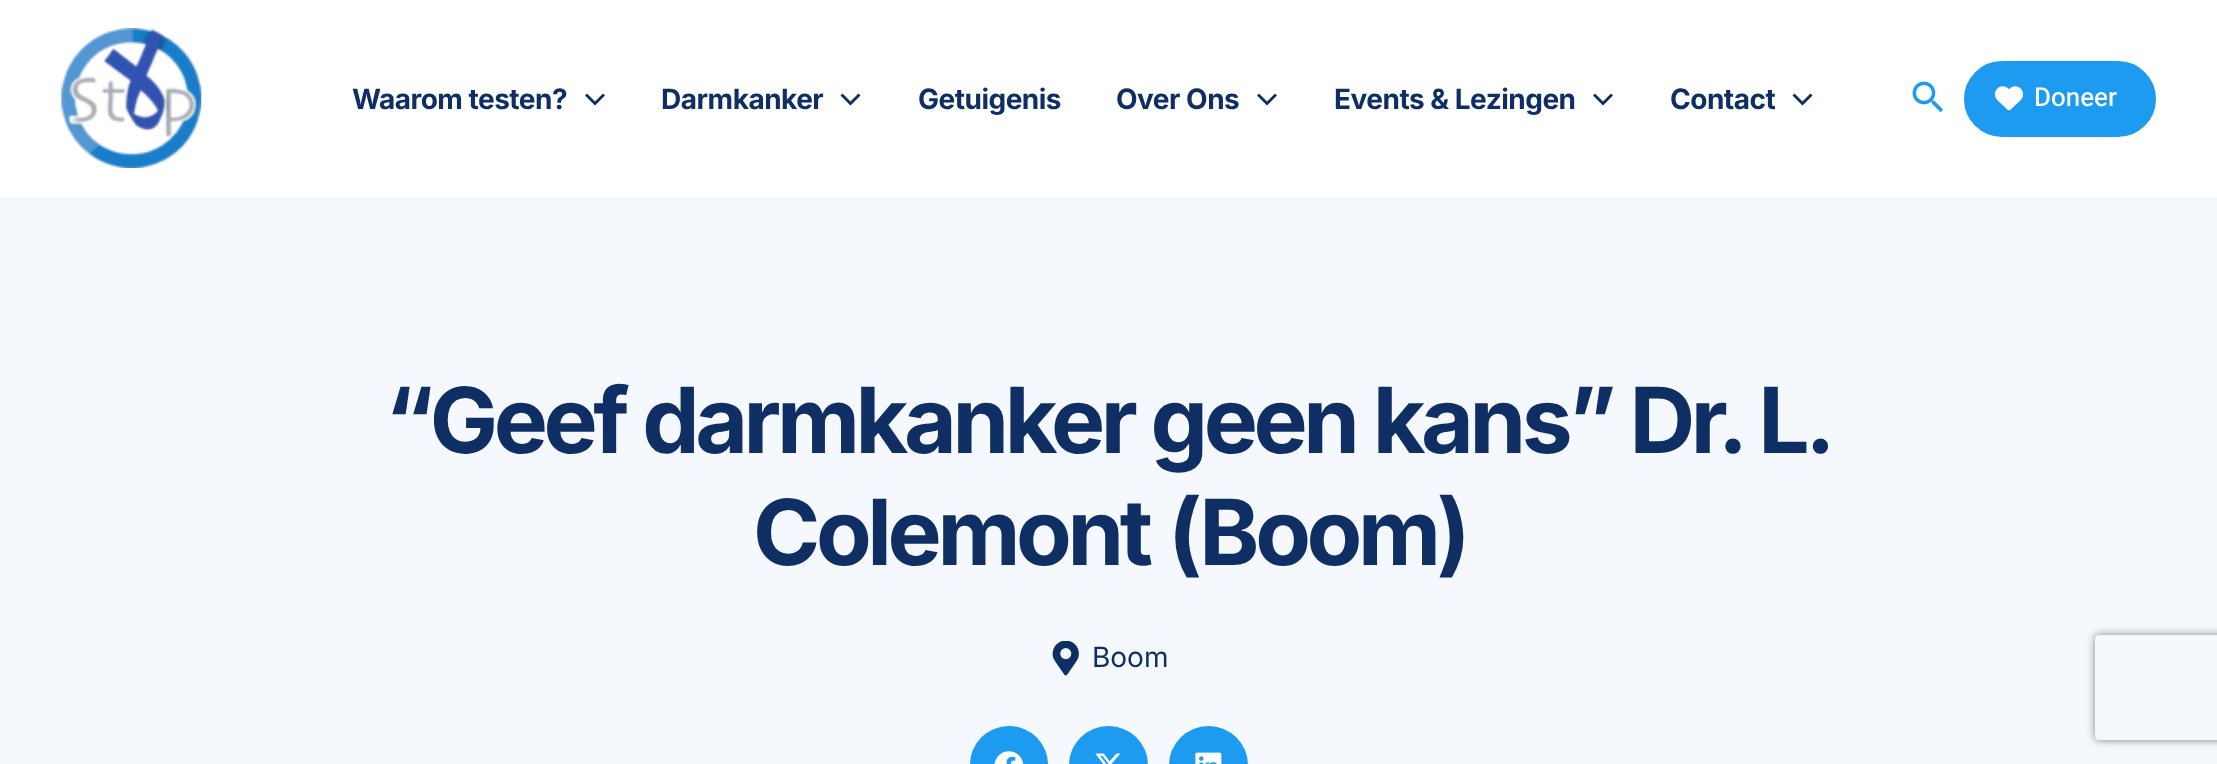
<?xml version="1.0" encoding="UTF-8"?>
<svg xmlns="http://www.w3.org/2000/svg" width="2217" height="764">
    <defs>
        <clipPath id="clip1"><path d="M 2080 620 H 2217 V 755 H 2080 Z M 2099 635 H 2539 C 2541 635 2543 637 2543 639 V 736 C 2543 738 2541 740 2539 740 H 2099 C 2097 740 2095 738 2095 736 V 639 C 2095 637 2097 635 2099 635 Z" clip-rule="evenodd"/></clipPath>
        <filter id="blur1" x="-50%" y="-200%" width="200%" height="500%"><feGaussianBlur stdDeviation="4.5"/></filter>
    </defs>
    <rect width="100%" height="100%" fill="#FFFFFF"/>
    <image x="61" y="28" width="141" height="140" href="img_01.png"/>
    <text x="352" y="109" font-family="Inter" font-size="28" font-weight="700" letter-spacing="-0.5" fill="#0F2F64">Waarom testen?</text>
    <path d="M 585 95.5 L 595 105.5 L 605 95.5 L 603 93.5 L 595 101.5 L 587 93.5 Z" fill="#0F2F64"/>
    <text x="661" y="109" font-family="Inter" font-size="28" font-weight="700" letter-spacing="-0.5" fill="#0F2F64">Darmkanker</text>
    <path d="M 840.5 95.5 L 850.5 105.5 L 860.5 95.5 L 858.5 93.5 L 850.5 101.5 L 842.5 93.5 Z" fill="#0F2F64"/>
    <text x="918" y="109" font-family="Inter" font-size="28" font-weight="700" letter-spacing="-0.5" fill="#0F2F64">Getuigenis</text>
    <text x="1116" y="109" font-family="Inter" font-size="28" font-weight="700" letter-spacing="-0.5" fill="#0F2F64">Over Ons</text>
    <path d="M 1257 95.5 L 1267 105.5 L 1277 95.5 L 1275 93.5 L 1267 101.5 L 1259 93.5 Z" fill="#0F2F64"/>
    <text x="1334" y="109" font-family="Inter" font-size="28" font-weight="700" letter-spacing="-0.5" fill="#0F2F64">Events &amp; Lezingen</text>
    <path d="M 1593 95.5 L 1603 105.5 L 1613 95.5 L 1611 93.5 L 1603 101.5 L 1595 93.5 Z" fill="#0F2F64"/>
    <text x="1670" y="109" font-family="Inter" font-size="28" font-weight="700" letter-spacing="-0.5" fill="#0F2F64">Contact</text>
    <path d="M 1792.5 95.5 L 1802.5 105.5 L 1812.5 95.5 L 1810.5 93.5 L 1802.5 101.5 L 1794.5 93.5 Z" fill="#0F2F64"/>
    <image x="1912" y="81" width="31" height="32" href="img_02.png"/>
    <rect x="1966" y="63" width="188" height="72" rx="36" fill="#1D9BF0" stroke="#1D9BF0" stroke-width="4"/>
    <image x="1995" y="86" width="28" height="25" href="img_03.png"/>
    <text x="2034" y="106" font-family="Heebo" font-size="26" font-weight="500" fill="#FFFFFF">Doneer</text>
    <rect x="0" y="198" width="2217" height="566" fill="#F5F9FE"/>
    <text x="385" y="453" font-family="Inter" font-size="91" font-weight="700" letter-spacing="-4.4" fill="#0F2F64">“Geef darmkanker geen kans” Dr. L.</text>
    <text x="753" y="565" word-spacing="2" font-family="Inter" font-size="91" font-weight="700" letter-spacing="-4.4" fill="#0F2F64">Colemont (Boom)</text>
    <image x="1052" y="641" width="27" height="35" href="img_04.png"/>
    <text x="1092" y="667" font-family="Inter" font-size="28" fill="#0F2F64">Boom</text>
    <rect x="970" y="726" width="78" height="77" rx="39" fill="#1D9BF0"/>
    <image x="994" y="751" width="30" height="13" href="img_05.png"/>
    <rect x="1069" y="726" width="79" height="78" rx="39.5" fill="#1D9BF0"/>
    <image x="1095" y="753" width="26" height="11" href="img_06.png"/>
    <rect x="1169" y="726" width="79" height="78" rx="39.5" fill="#1D9BF0"/>
    <image x="1195" y="752" width="27" height="12" href="img_07.png"/>
    <g clip-path="url(#clip1)">
        <rect x="2095" y="635" width="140" height="105" rx="4" fill="#808080" filter="url(#blur1)"/>
    </g>
</svg>
